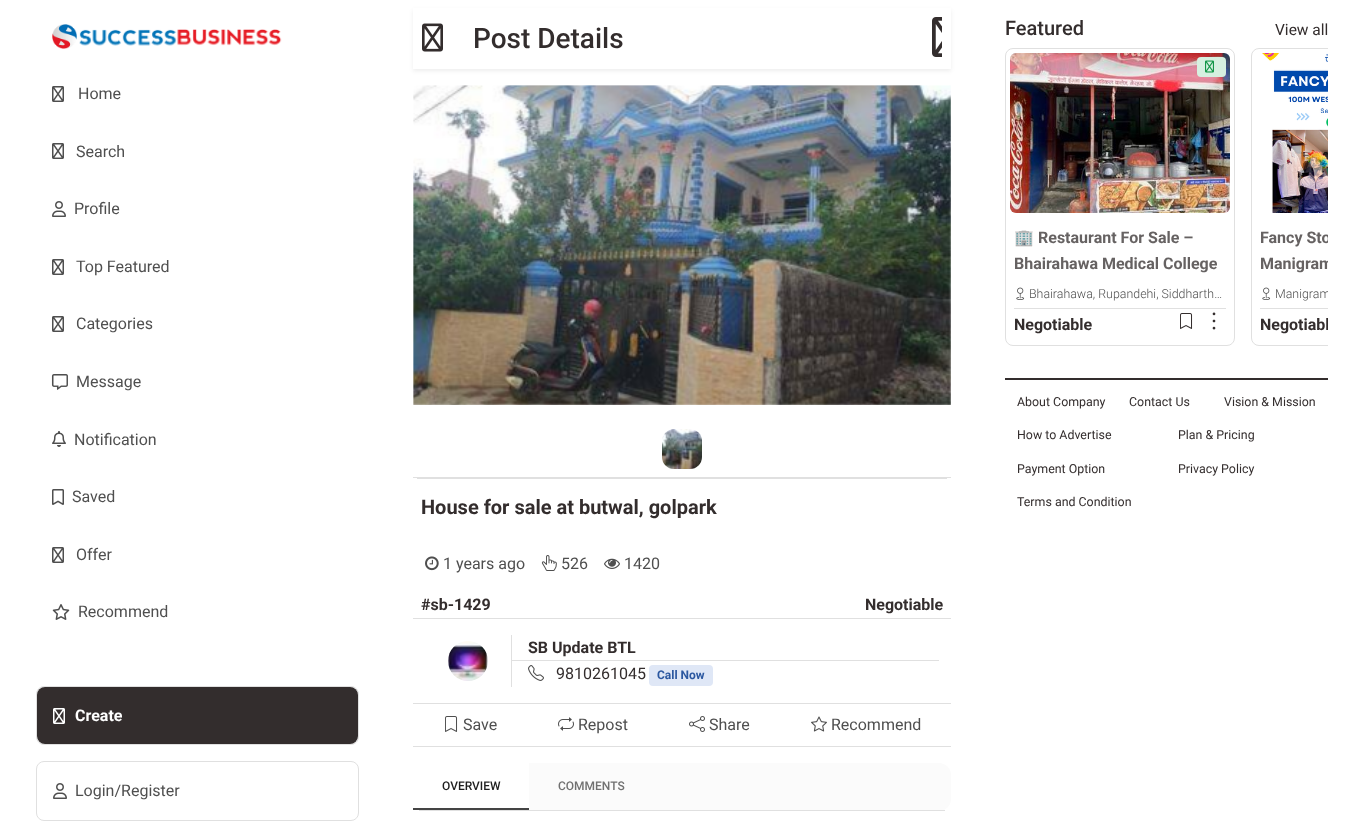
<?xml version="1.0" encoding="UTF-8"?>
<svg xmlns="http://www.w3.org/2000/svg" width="1364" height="837">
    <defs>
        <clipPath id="clip1"><path d="M 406 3 H 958 V 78 H 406 Z M 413 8 H 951 V 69 H 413 Z" clip-rule="evenodd"/></clipPath>
        <filter id="blur1" x="-50%" y="-200%" width="200%" height="500%"><feGaussianBlur stdDeviation="2"/></filter>
        <clipPath id="clip2"><rect x="1005" y="48" width="323" height="314"/></clipPath>
        <clipPath id="clip3"><rect x="1260" y="225" width="68" height="51"/></clipPath>
        <clipPath id="clip4"><rect x="1260" y="284" width="68" height="20"/></clipPath>
    </defs>
    <rect width="100%" height="100%" fill="#FFFFFF"/>
    <image x="52" y="24" width="25" height="25" href="img_01.png"/>
    <image x="79" y="29" width="203" height="17" href="img_02.png"/>
    <image x="52" y="86" width="12" height="16" href="img_03.png"/>
    <text x="78" y="99" font-family="Roboto" font-size="16" fill="#4F4F4F">Home</text>
    <image x="52" y="143" width="12" height="16" href="img_03.png"/>
    <text x="76" y="157" font-family="Roboto" font-size="16" fill="#4F4F4F">Search</text>
    <image x="52" y="201" width="14" height="16" href="img_04.png"/>
    <text x="74" y="214" font-family="Roboto" font-size="16" fill="#4F4F4F">Profile</text>
    <image x="52" y="259" width="12" height="16" href="img_03.png"/>
    <text x="76" y="272" font-family="Roboto" font-size="16" fill="#4F4F4F">Top Featured</text>
    <image x="52" y="316" width="12" height="16" href="img_03.png"/>
    <text x="76" y="329" font-family="Roboto" font-size="16" fill="#4F4F4F">Categories</text>
    <image x="51" y="374" width="17" height="16" href="img_05.png"/>
    <text x="76" y="387" font-family="Roboto" font-size="16" fill="#4F4F4F">Message</text>
    <image x="52" y="431" width="14" height="16" href="img_06.png"/>
    <text x="74" y="445" font-family="Roboto" font-size="16" fill="#4F4F4F">Notification</text>
    <image x="52" y="489" width="12" height="16" href="img_07.png"/>
    <text x="72" y="502" font-family="Roboto" font-size="16" fill="#4F4F4F">Saved</text>
    <image x="52" y="547" width="12" height="16" href="img_03.png"/>
    <text x="76" y="560" font-family="Roboto" font-size="16" fill="#4F4F4F">Offer</text>
    <image x="52" y="604" width="18" height="16" href="img_08.png"/>
    <text x="78" y="617" font-family="Roboto" font-size="16" fill="#4F4F4F">Recommend</text>
    <rect x="36.5" y="686.5" width="322" height="58" rx="7.5" fill="none" stroke="#E0E0E0"/>
    <rect x="37" y="687" width="321" height="57" rx="8" fill="#332D2D"/>
    <image x="53" y="708" width="12" height="16" href="img_09.png"/>
    <text x="75" y="721" font-family="Roboto" font-size="16" font-weight="700" fill="#FFFFFF">Create</text>
    <rect x="36.5" y="761.5" width="322" height="59" rx="7.5" fill="none" stroke="#E0E0E0"/>
    <image x="53" y="783" width="14" height="16" href="img_04.png"/>
    <text x="75" y="796" font-family="Roboto" font-size="16" fill="#4F4F4F">Login/Register</text>
    <g clip-path="url(#clip1)">
        <rect x="413" y="10" width="538" height="61" fill="#000000" fill-opacity="0.07" filter="url(#blur1)"/>
    </g>
    <image x="422" y="23" width="21" height="29" href="img_10.png"/>
    <text x="473" y="48" font-family="Roboto" font-size="28" font-weight="500" fill="#332D2D">Post Details</text>
    <image x="932" y="17" width="10" height="40" href="img_11.png"/>
    <rect x="417" y="478" width="530" height="1" fill="#E0E0E0"/>
    <image x="413" y="85" width="538" height="320" href="img_12.png"/>
    <rect x="413" y="477" width="538" height="1" fill="#E0E0E0"/>
    <image x="662" y="429" width="40" height="40" href="img_13.png"/>
    <text x="421" y="514" font-family="Roboto" font-size="20" font-weight="700" fill="#332D2D">House for sale at butwal, golpark</text>
    <image x="425" y="556" width="14" height="15" href="img_14.png"/>
    <text x="443" y="569" font-family="Roboto" font-size="16" fill="#4F4F4F">1 years ago</text>
    <image x="541" y="555" width="16" height="16" href="img_15.png"/>
    <text x="561" y="569" font-family="Roboto" font-size="16" fill="#4F4F4F">526</text>
    <image x="604" y="558" width="16" height="11" href="img_16.png"/>
    <text x="624" y="569" font-family="Roboto" font-size="16" fill="#4F4F4F">1420</text>
    <rect x="413" y="618" width="538" height="1" fill="#E0E0E0"/>
    <text x="421" y="610" font-family="Roboto" font-size="16" font-weight="700" fill="#332D2D">#sb-1429</text>
    <text x="865" y="610" font-family="Roboto" font-size="16" font-weight="700" fill="#332D2D">Negotiable</text>
    <image x="448" y="641" width="40" height="40" href="img_17.png"/>
    <rect x="511" y="635" width="1" height="52" fill="#E0E0E0"/>
    <rect x="512" y="660" width="427" height="1" fill="#E0E0E0"/>
    <text x="528" y="653" font-family="Roboto" font-size="16" font-weight="700" fill="#332D2D">SB Update BTL</text>
    <image x="528" y="665" width="16" height="16" href="img_18.png"/>
    <text x="556" y="679" font-family="Roboto" font-size="16" fill="#332D2D">9810261045</text>
    <rect x="649" y="665" width="64" height="21" rx="4" fill="#DFE7F6"/>
    <text x="657" y="679" font-family="Roboto" font-size="12" font-weight="700" fill="#2C58A0">Call Now</text>
    <rect x="413" y="703" width="538" height="1" fill="#E0E0E0"/>
    <rect x="413" y="746" width="538" height="1" fill="#E0E0E0"/>
    <image x="445" y="716" width="13" height="16" href="img_19.png"/>
    <text x="463" y="730" font-family="Roboto" font-size="16" fill="#4F4F4F">Save</text>
    <image x="558" y="717" width="16" height="14" href="img_20.png"/>
    <text x="578" y="730" font-family="Roboto" font-size="16" fill="#4F4F4F">Repost</text>
    <image x="689" y="716" width="16" height="16" href="img_21.png"/>
    <text x="709" y="730" font-family="Roboto" font-size="16" fill="#4F4F4F">Share</text>
    <image x="811" y="716" width="16" height="16" href="img_22.png"/>
    <text x="831" y="730" font-family="Roboto" font-size="16" fill="#4F4F4F">Recommend</text>
    <rect x="413" y="763" width="538" height="48" rx="12" fill="#FBFBFB"/>
    <rect x="419" y="810" width="526" height="1" fill="#E0E0E0"/>
    <rect x="413" y="763" width="116" height="45" fill="#FFFFFF"/>
    <rect x="413" y="808" width="116" height="2" fill="#444444"/>
    <text x="442" y="790" font-family="Roboto" font-size="12" font-weight="500" fill="#1E1E1E">OVERVIEW</text>
    <text x="558" y="790" font-family="Roboto" font-size="12" font-weight="500" fill="#717171">COMMENTS</text>
    <text x="1005" y="35" font-family="Roboto" font-size="20" font-weight="500" fill="#332D2D">Featured</text>
    <text x="1275" y="35" font-family="Roboto" font-size="15.5" fill="#332D2D">View all</text>
    <rect x="1005.5" y="48.5" width="229" height="297" rx="7.5" fill="none" stroke="#E0E0E0"/>
    <image x="1010" y="53" width="220" height="160" href="img_23.png"/>
    <rect x="1197" y="57" width="29" height="20" rx="4" fill="#D6F0E0"/>
    <image x="1205" y="60" width="9" height="13" href="img_24.png"/>
    <text x="1014" y="243" font-family="Noto Color Emoji" font-size="16" font-weight="700" fill="#666262">🏢</text>
    <text x="1038" y="243" font-family="Roboto" font-size="16" font-weight="700" fill="#666262">Restaurant For Sale –</text>
    <text x="1014" y="269" font-family="Roboto" font-size="16" font-weight="700" fill="#666262">Bhairahawa Medical College</text>
    <image x="1016" y="287" width="9" height="13" href="img_25.png"/>
    <text x="1029" y="298" font-family="Roboto" font-size="12.4" font-weight="300" fill="#4F4F4F">Bhairahawa, Rupandehi, Siddharth…</text>
    <rect x="1014" y="308" width="212" height="1" fill="#E0E0E0"/>
    <text x="1014" y="330" font-family="Roboto" font-size="16" font-weight="700" fill="#332D2D">Negotiable</text>
    <image x="1180" y="313" width="13" height="16" href="img_26.png"/>
    <image x="1212" y="312" width="4" height="18" href="img_27.png"/>
    <g clip-path="url(#clip2)">
        <rect x="1251.5" y="48.5" width="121" height="297" rx="7.5" fill="none" stroke="#E0E0E0"/>
    </g>
    <image x="1262" y="53" width="66" height="160" href="img_28.png"/>
    <g clip-path="url(#clip3)">
        <text font-family="Roboto" font-size="16" font-weight="700" fill="#666262">
            <tspan x="1260" y="243">Fancy Sto</tspan>
            <tspan x="1260" y="269">Manigram</tspan>
        </text>
    </g>
    <image x="1262" y="287" width="9" height="13" href="img_25.png"/>
    <g clip-path="url(#clip4)">
        <text x="1275" y="298" font-family="Roboto" font-size="12.4" font-weight="300" fill="#4F4F4F">Manigram</text>
    </g>
    <rect x="1260" y="308" width="68" height="1" fill="#E0E0E0"/>
    <g clip-path="url(#clip2)">
        <text x="1260" y="330" font-family="Roboto" font-size="16" font-weight="700" fill="#332D2D">Negotiabl</text>
    </g>
    <rect x="1005" y="378" width="323" height="2" fill="#332D2D"/>
    <text x="1017" y="406" font-family="Roboto" font-size="12.4" fill="#332D2D">About Company</text>
    <text x="1129" y="406" font-family="Roboto" font-size="12.4" fill="#332D2D">Contact Us</text>
    <text x="1224" y="406" font-family="Roboto" font-size="12.4" fill="#332D2D">Vision &amp; Mission</text>
    <text x="1017" y="439" font-family="Roboto" font-size="12.4" fill="#332D2D">How to Advertise</text>
    <text x="1178" y="439" font-family="Roboto" font-size="12.4" fill="#332D2D">Plan &amp; Pricing</text>
    <text x="1017" y="473" font-family="Roboto" font-size="12.4" fill="#332D2D">Payment Option</text>
    <text x="1178" y="473" font-family="Roboto" font-size="12.4" fill="#332D2D">Privacy Policy</text>
    <text x="1017" y="506" font-family="Roboto" font-size="12.4" fill="#332D2D">Terms and Condition</text>
</svg>
